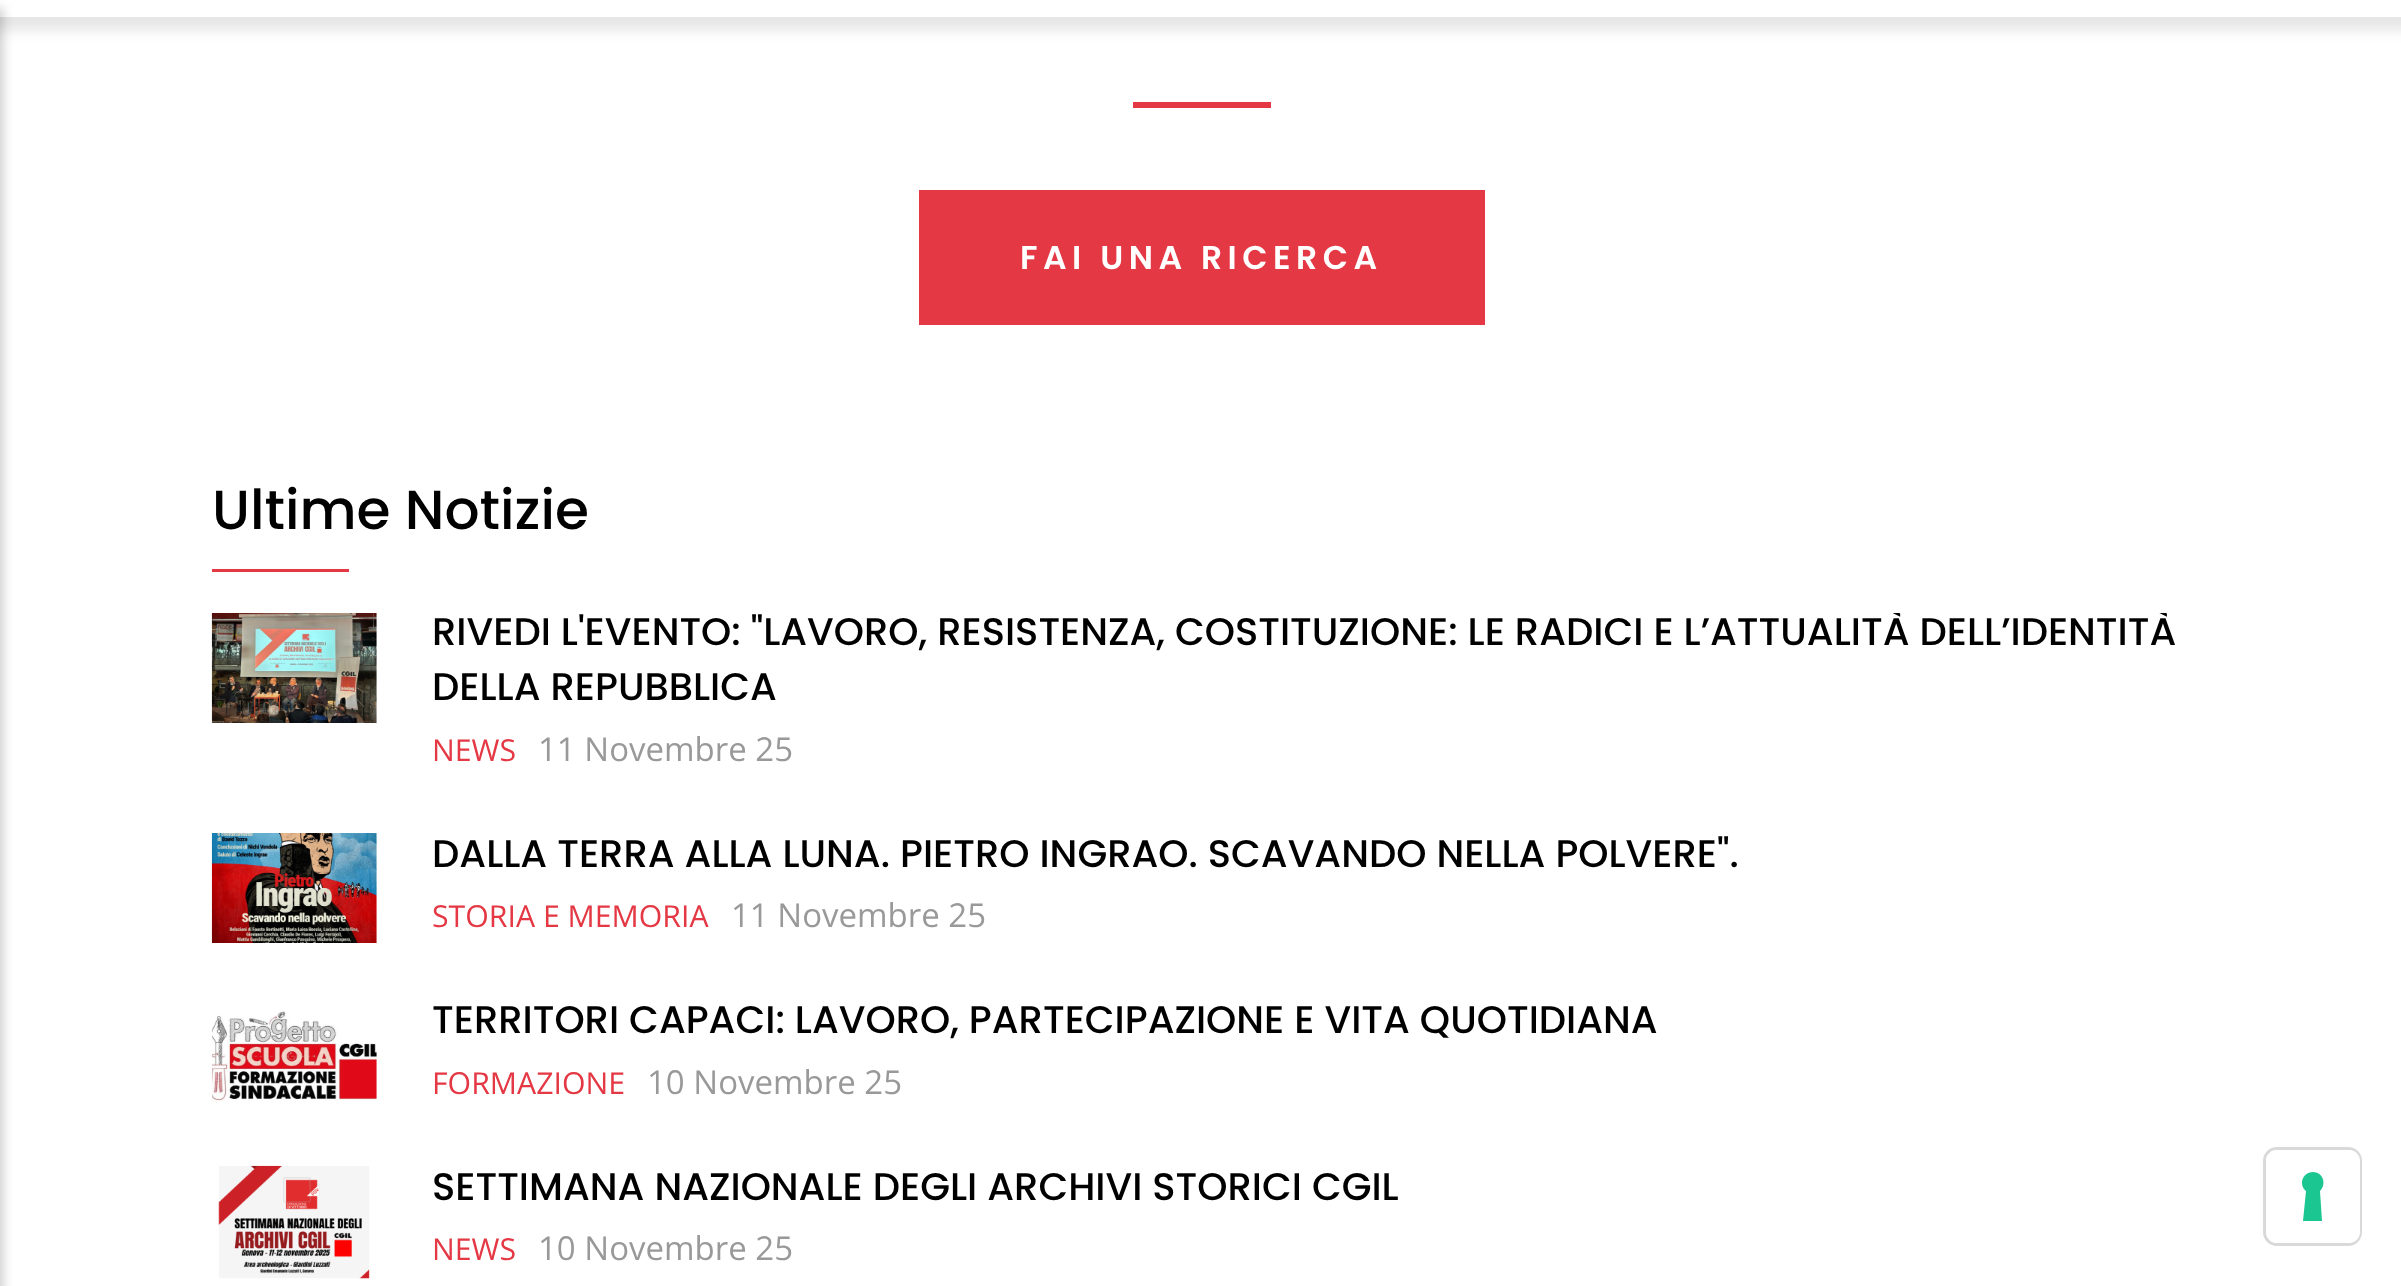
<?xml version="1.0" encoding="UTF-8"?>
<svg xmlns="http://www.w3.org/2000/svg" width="2401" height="1286">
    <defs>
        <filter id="blur1" x="-50%" y="-200%" width="200%" height="500%"><feGaussianBlur stdDeviation="7"/></filter>
        <filter id="blur2" x="-50%" y="-200%" width="200%" height="500%"><feGaussianBlur stdDeviation="5.5"/></filter>
        <clipPath id="clip1"><rect x="212" y="613" width="1980" height="165"/></clipPath>
    </defs>
    <rect width="100%" height="100%" fill="#FFFFFF"/>
    <rect x="-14" y="-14" width="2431" height="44" fill="#000000" fill-opacity="0.1" filter="url(#blur1)"/>
    <rect x="0" y="0" width="2401" height="17" fill="#FFFFFF"/>
    <rect x="-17" y="8" width="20" height="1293" fill="#000000" fill-opacity="0.2" filter="url(#blur2)"/>
    <rect x="1133" y="102" width="138" height="6" fill="#E43844"/>
    <rect x="919" y="190" width="566" height="135" fill="#E43844"/>
    <text x="1020" y="269" font-family="Poppins" font-size="33" font-weight="600" letter-spacing="5.5" fill="#FFFFFF">FAI UNA RICERCA</text>
    <text x="212" y="529" font-family="Poppins" font-size="55" font-weight="500" fill="#000000">Ultime Notizie</text>
    <rect x="212" y="569" width="137" height="3" fill="#E43844"/>
    <image x="211" y="613" width="166" height="110" href="img_01.png"/>
    <g clip-path="url(#clip1)">
        <text x="432" y="645" font-family="Poppins" font-size="38.5" font-weight="500" fill="#000000">RIVEDI L'EVENTO: "LAVORO, RESISTENZA, COSTITUZIONE: LE RADICI E L’ATTUALITÀ DELL’IDENTITÀ</text>
    </g>
    <text x="432" y="700" font-family="Poppins" font-size="38.5" font-weight="500" fill="#000000">DELLA REPUBBLICA</text>
    <text x="432" y="761" font-family="Open Sans" font-size="30.25" fill="#E43844">NEWS</text>
    <text x="538" y="761" font-family="Open Sans" font-size="33" fill="#999999">11 Novembre 25</text>
    <image x="211" y="833" width="166" height="110" href="img_02.png"/>
    <text x="432" y="867" font-family="Poppins" font-size="38.5" font-weight="500" fill="#000000">DALLA TERRA ALLA LUNA. PIETRO INGRAO. SCAVANDO NELLA POLVERE".</text>
    <text x="432" y="927" font-family="Open Sans" font-size="30.25" fill="#E43844">STORIA E MEMORIA</text>
    <text x="731" y="927" font-family="Open Sans" font-size="33" fill="#999999">11 Novembre 25</text>
    <image x="211" y="1011" width="166" height="90" href="img_03.png"/>
    <text x="432" y="1033" font-family="Poppins" font-size="38.5" font-weight="500" fill="#000000">TERRITORI CAPACI: LAVORO, PARTECIPAZIONE E VITA QUOTIDIANA</text>
    <text x="432" y="1094" font-family="Open Sans" font-size="30.25" fill="#E43844">FORMAZIONE</text>
    <text x="647" y="1094" font-family="Open Sans" font-size="33" fill="#999999">10 Novembre 25</text>
    <image x="218" y="1165" width="152" height="114" href="img_04.png"/>
    <text x="432" y="1200" font-family="Poppins" font-size="38.5" font-weight="500" fill="#000000">SETTIMANA NAZIONALE DEGLI ARCHIVI STORICI CGIL</text>
    <text x="432" y="1260" font-family="Open Sans" font-size="30.25" fill="#E43844">NEWS</text>
    <text x="538" y="1260" font-family="Open Sans" font-size="33" fill="#999999">10 Novembre 25</text>
    <rect x="2264.5" y="1148.5" width="96" height="96" rx="12.5" fill="none" stroke="#D9D9D9" stroke-width="3"/>
    <rect x="2266" y="1150" width="94" height="93" rx="11" fill="#FFFFFF"/>
    <path d="M 2313 1172 C 2323 1172 2327 1184 2320 1191 L 2322 1221 H 2303 L 2306 1191 C 2298 1184 2303 1172 2313 1172 Z" fill="#1CC691" fill-rule="evenodd"/>
</svg>
